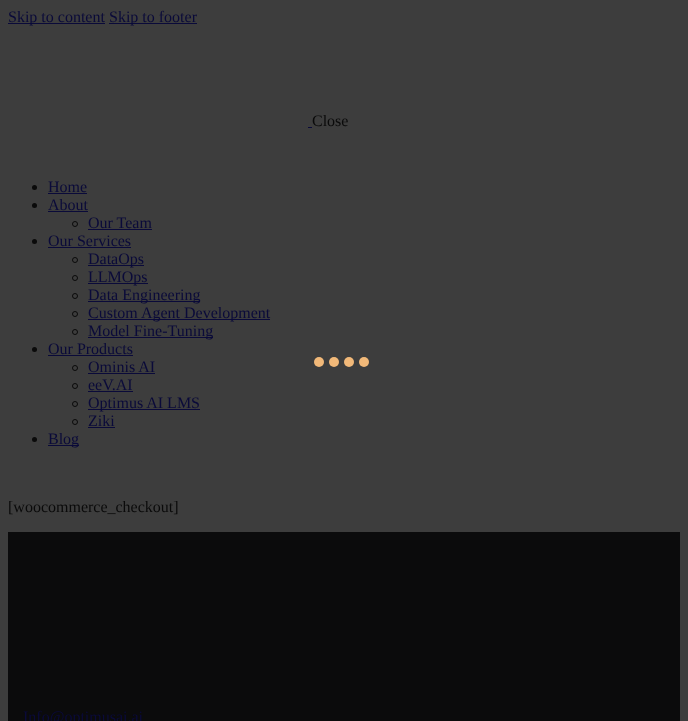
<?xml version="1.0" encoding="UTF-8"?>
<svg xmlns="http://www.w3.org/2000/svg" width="688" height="721">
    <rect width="100%" height="100%" fill="#3D3D3D"/>
    <rect x="8" y="23" width="97" height="1" fill="#0A0A39"/>
    <text x="8" y="22" font-family="Liberation Serif" font-size="16" fill="#0A0A39">Skip to content</text>
    <rect x="109" y="23" width="88" height="1" fill="#0A0A39"/>
    <text x="109" y="22" font-family="Liberation Serif" font-size="16" fill="#0A0A39">Skip to footer</text>
    <text x="312" y="126" font-family="Liberation Serif" font-size="16" fill="#0A0A0A">Close</text>
    <rect x="308" y="127" width="4" height="1" fill="#0A0A39"/>
    <circle cx="34.5" cy="187.5" r="2.5" fill="#0A0A0A"/>
    <text x="48" y="192" font-family="Liberation Serif" font-size="16" fill="#0A0A39">Home</text>
    <rect x="48" y="193" width="39" height="1" fill="#0A0A39"/>
    <circle cx="34.5" cy="205.5" r="2.5" fill="#0A0A0A"/>
    <text x="48" y="210" font-family="Liberation Serif" font-size="16" fill="#0A0A39">About</text>
    <rect x="48" y="211" width="40" height="1" fill="#0A0A39"/>
    <circle cx="75" cy="224" r="2.5" fill="none" stroke="#0A0A0A"/>
    <text x="88" y="228" font-family="Liberation Serif" font-size="16" fill="#0A0A39">Our Team</text>
    <rect x="88" y="229" width="64" height="1" fill="#0A0A39"/>
    <circle cx="34.5" cy="241.5" r="2.5" fill="#0A0A0A"/>
    <text x="48" y="246" font-family="Liberation Serif" font-size="16" fill="#0A0A39">Our Services</text>
    <rect x="48" y="247" width="83" height="1" fill="#0A0A39"/>
    <circle cx="75" cy="260" r="2.5" fill="none" stroke="#0A0A0A"/>
    <rect x="88" y="265" width="56" height="1" fill="#0A0A39"/>
    <text x="88" y="264" font-family="Liberation Serif" font-size="16" fill="#0A0A39">DataOps</text>
    <circle cx="75" cy="278" r="2.5" fill="none" stroke="#0A0A0A"/>
    <rect x="88" y="283" width="60" height="1" fill="#0A0A39"/>
    <text x="88" y="282" font-family="Liberation Serif" font-size="16" fill="#0A0A39">LLMOps</text>
    <circle cx="75" cy="296" r="2.5" fill="none" stroke="#0A0A0A"/>
    <rect x="88" y="301" width="112" height="1" fill="#0A0A39"/>
    <text x="88" y="300" font-family="Liberation Serif" font-size="16" fill="#0A0A39">Data Engineering</text>
    <circle cx="75" cy="314" r="2.5" fill="none" stroke="#0A0A0A"/>
    <rect x="88" y="319" width="182" height="1" fill="#0A0A39"/>
    <text x="88" y="318" font-family="Liberation Serif" font-size="16" fill="#0A0A39">Custom Agent Development</text>
    <circle cx="75" cy="332" r="2.5" fill="none" stroke="#0A0A0A"/>
    <rect x="88" y="337" width="125" height="1" fill="#0A0A39"/>
    <text x="88" y="336" font-family="Liberation Serif" font-size="16" fill="#0A0A39">Model Fine-Tuning</text>
    <circle cx="34.5" cy="349.5" r="2.5" fill="#0A0A0A"/>
    <text x="48" y="354" font-family="Liberation Serif" font-size="16" fill="#0A0A39">Our Products</text>
    <rect x="48" y="355" width="85" height="1" fill="#0A0A39"/>
    <circle cx="75" cy="368" r="2.5" fill="none" stroke="#0A0A0A"/>
    <text x="88" y="372" font-family="Liberation Serif" font-size="16" fill="#0A0A39">Ominis AI</text>
    <rect x="88" y="373" width="67" height="1" fill="#0A0A39"/>
    <circle cx="75" cy="386" r="2.5" fill="none" stroke="#0A0A0A"/>
    <text x="88" y="390" font-family="Liberation Serif" font-size="16" fill="#0A0A39">eeV.AI</text>
    <rect x="88" y="391" width="45" height="1" fill="#0A0A39"/>
    <circle cx="75" cy="404" r="2.5" fill="none" stroke="#0A0A0A"/>
    <rect x="88" y="409" width="112" height="1" fill="#0A0A39"/>
    <text x="88" y="408" font-family="Liberation Serif" font-size="16" fill="#0A0A39">Optimus AI LMS</text>
    <circle cx="75" cy="422" r="2.5" fill="none" stroke="#0A0A0A"/>
    <text x="88" y="426" font-family="Liberation Serif" font-size="16" fill="#0A0A39">Ziki</text>
    <rect x="88" y="427" width="27" height="1" fill="#0A0A39"/>
    <circle cx="34.5" cy="439.5" r="2.5" fill="#0A0A0A"/>
    <rect x="48" y="445" width="31" height="1" fill="#0A0A39"/>
    <text x="48" y="444" font-family="Liberation Serif" font-size="16" fill="#0A0A39">Blog</text>
    <text x="8" y="512" font-family="Liberation Serif" font-size="16" fill="#0A0A0A">[woocommerce_checkout]</text>
    <rect x="8" y="532" width="672" height="189" fill="#0B0B0C"/>
    <text x="23" y="722" font-family="Liberation Serif" font-size="16" fill="#0A0A39">Info@optimusai.ai</text>
    <circle cx="319" cy="362" r="5" fill="#F2B979"/>
    <circle cx="334" cy="362" r="5" fill="#F2B979"/>
    <circle cx="349" cy="362" r="5" fill="#F2B979"/>
    <circle cx="364" cy="362" r="5" fill="#F2B979"/>
</svg>
